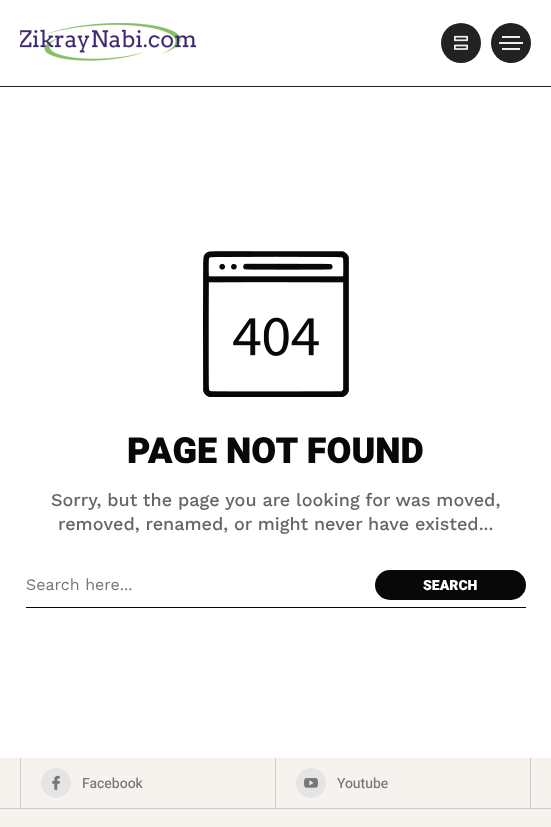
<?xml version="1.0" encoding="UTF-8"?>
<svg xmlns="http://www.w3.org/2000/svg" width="551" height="827">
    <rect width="100%" height="100%" fill="#FFFFFF"/>
    <rect x="0" y="86" width="551" height="1" fill="#222222"/>
    <image x="20" y="23" width="176" height="38" href="img_01.png"/>
    <circle cx="461" cy="43" r="20" fill="#222222"/>
    <image x="454" y="35" width="14" height="15" href="img_02.png"/>
    <circle cx="511" cy="43" r="20" fill="#222222"/>
    <rect x="499" y="42" width="24" height="2" fill="#EEEEEE"/>
    <rect x="502" y="36" width="18" height="2" fill="#EEEEEE"/>
    <rect x="502" y="48" width="18" height="2" fill="#EEEEEE"/>
    <image x="203" y="251" width="146" height="146" href="img_03.png"/>
    <text x="127" y="463" font-family="Heebo" font-size="36" font-weight="900" fill="#080808">PAGE NOT FOUND</text>
    <text x="51" y="506" font-family="Work Sans" font-size="18" font-weight="500" fill="#666666">Sorry, but the page you are looking for was moved,</text>
    <text x="58" y="530" font-family="Work Sans" font-size="18" font-weight="500" fill="#666666">removed, renamed, or might never have existed...</text>
    <rect x="26" y="607" width="500" height="1" fill="#080808"/>
    <text x="26" y="590" font-family="Work Sans" font-size="16" fill="#777777">Search here...</text>
    <rect x="375" y="570" width="151" height="30" rx="15" fill="#080808"/>
    <text x="423" y="590" font-family="Heebo" font-size="14" font-weight="900" fill="#FFFFFF">SEARCH</text>
    <rect x="0" y="758" width="551" height="69" fill="#F6F3EE"/>
    <rect x="0" y="808" width="551" height="1" fill="#CCCCCC"/>
    <rect x="20" y="758" width="1" height="51" fill="#CCCCCC"/>
    <rect x="275" y="758" width="1" height="51" fill="#CCCCCC"/>
    <circle cx="56" cy="783" r="15" fill="#E5E5E5"/>
    <image x="52" y="775" width="8" height="15" href="img_04.png"/>
    <text x="82" y="788" font-family="Heebo" font-size="14" font-weight="500" fill="#777777">Facebook</text>
    <rect x="530" y="758" width="1" height="51" fill="#CCCCCC"/>
    <circle cx="311" cy="783" r="15" fill="#E5E5E5"/>
    <image x="304" y="778" width="14" height="10" href="img_05.png"/>
    <text x="337" y="788" font-family="Heebo" font-size="14" font-weight="500" fill="#777777">Youtube</text>
</svg>
